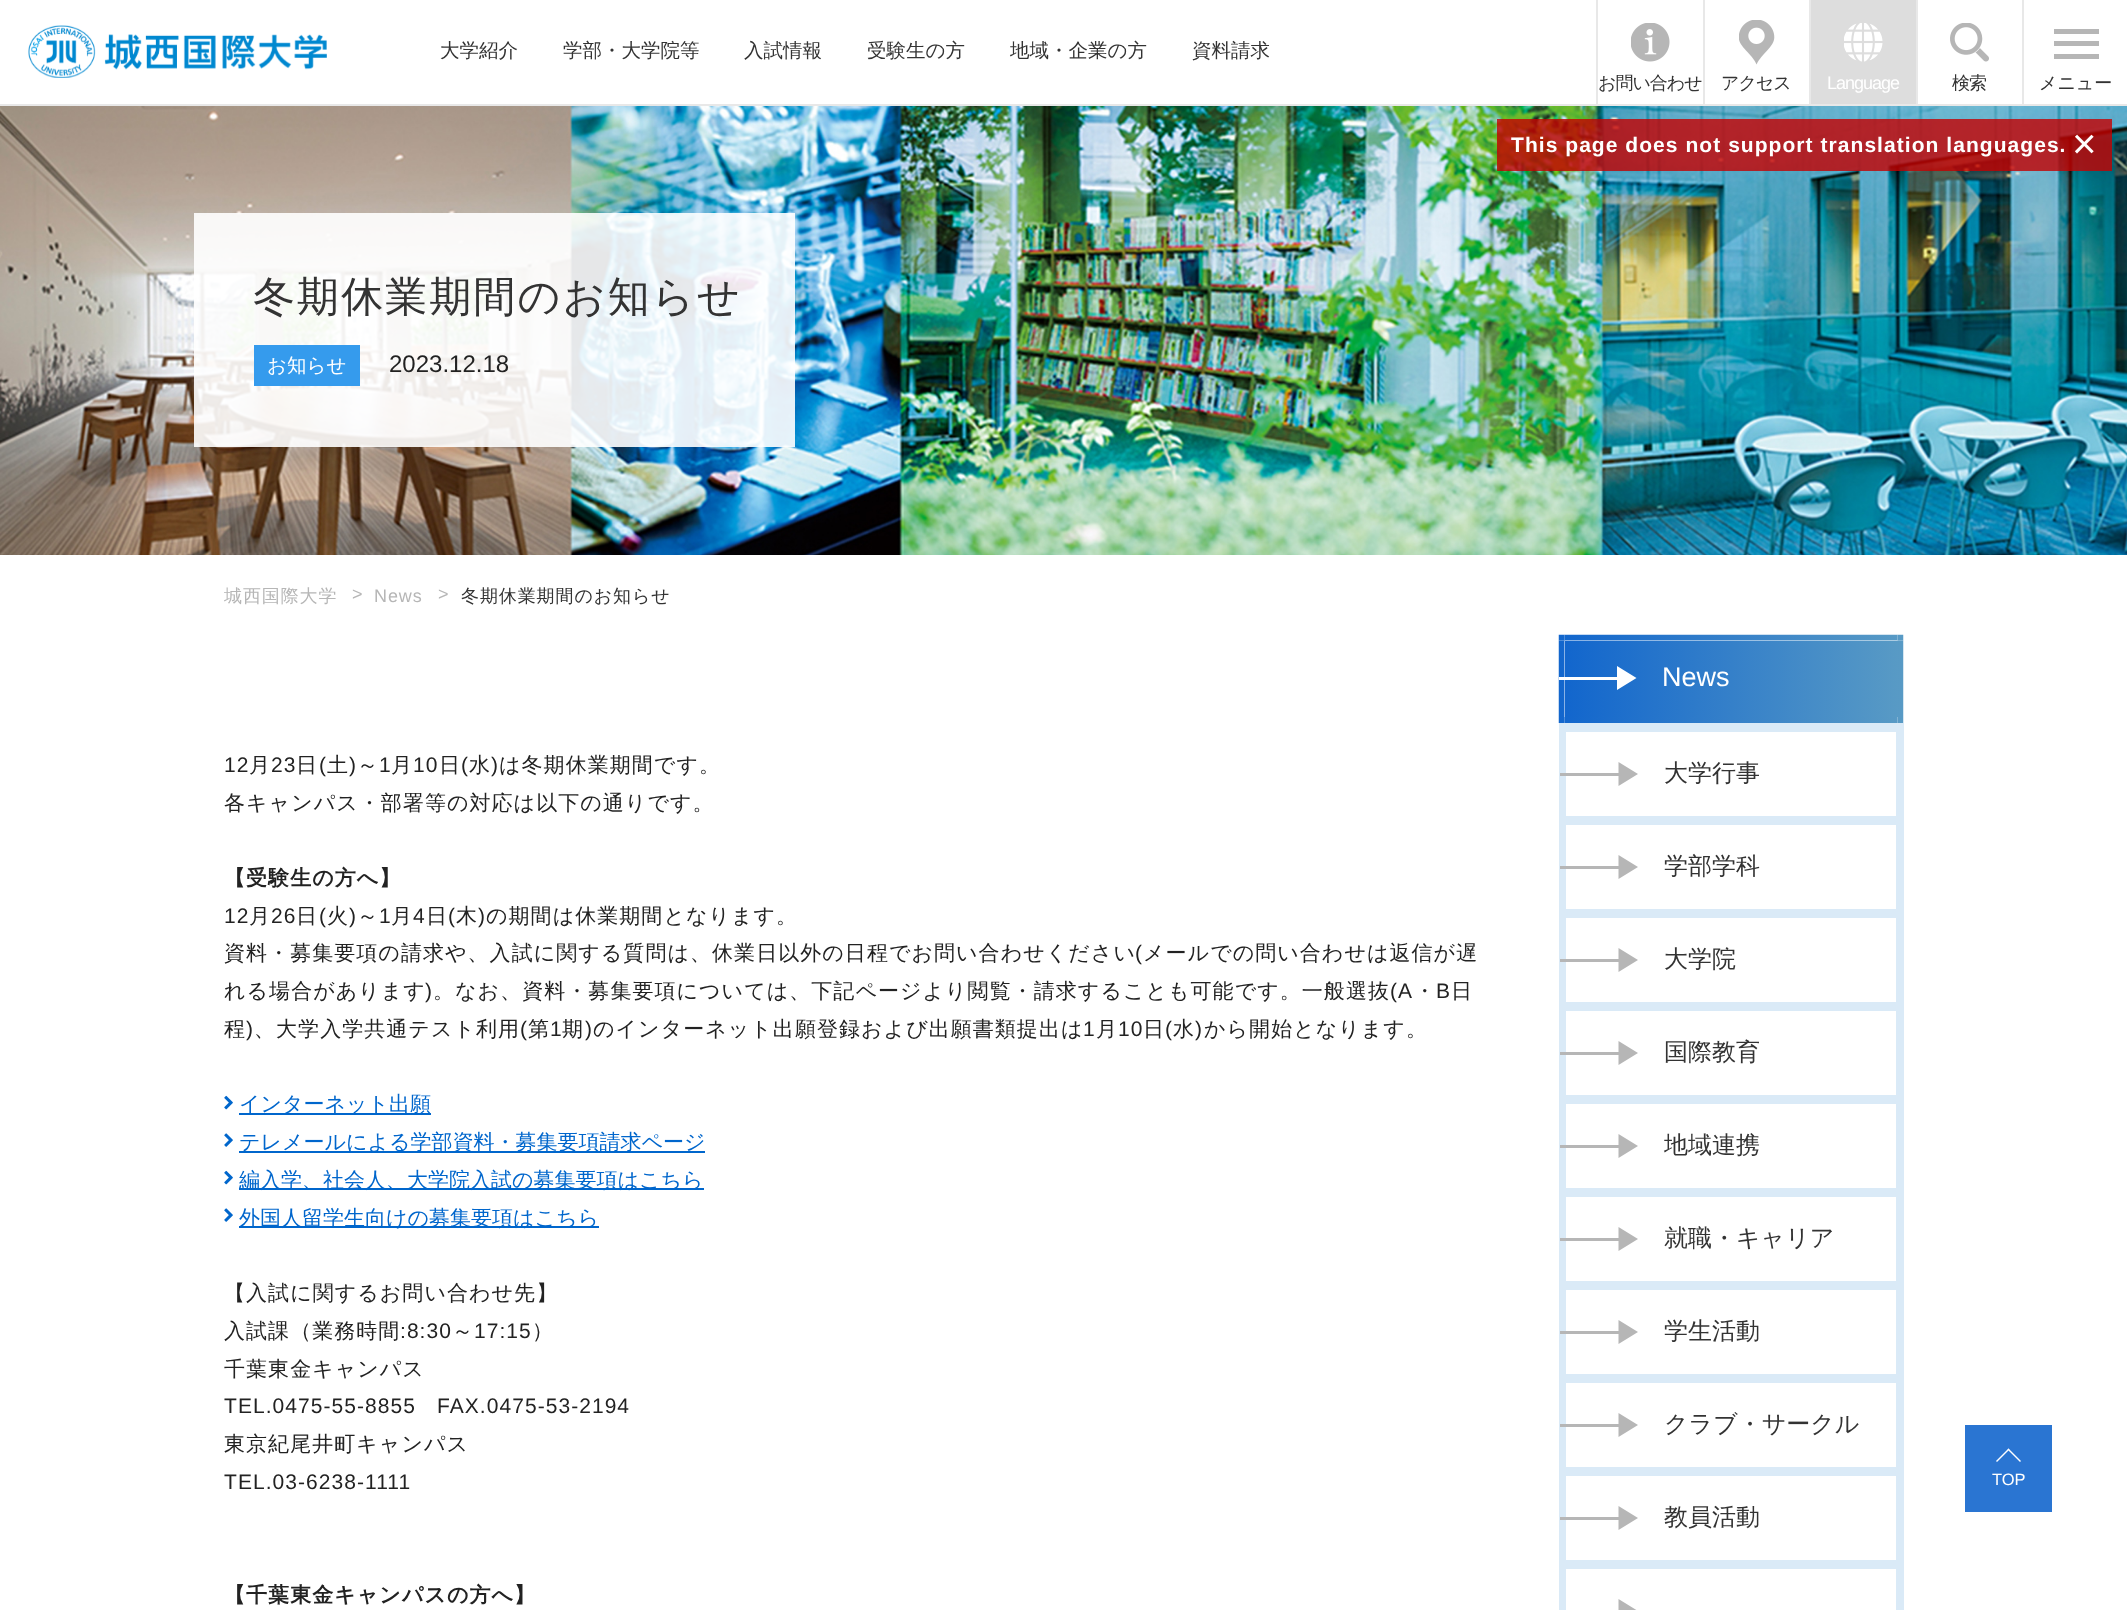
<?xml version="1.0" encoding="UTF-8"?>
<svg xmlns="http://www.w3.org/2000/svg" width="2127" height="1610">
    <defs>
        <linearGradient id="g1" gradientUnits="userSpaceOnUse" x1="1565" y1="679" x2="1898" y2="679"><stop offset="0" stop-color="#1266CD"/><stop offset="1" stop-color="#589AC5"/></linearGradient>
    </defs>
    <rect width="100%" height="100%" fill="#FFFFFF"/>
    <rect x="0" y="104" width="2127" height="2" fill="#E8E8E8"/>
    <image x="28" y="25" width="299" height="53" href="img_01.png"/>
    <text x="440" y="57" font-family="WenQuanYi Zen Hei" font-size="19.5" font-weight="500" fill="#333333">大学紹介</text>
    <text x="563" y="57" font-family="WenQuanYi Zen Hei" font-size="19.5" font-weight="500" fill="#333333">学部・大学院等</text>
    <text x="744" y="57" font-family="WenQuanYi Zen Hei" font-size="19.5" font-weight="500" fill="#333333">入試情報</text>
    <text x="867" y="57" font-family="WenQuanYi Zen Hei" font-size="19.5" font-weight="500" fill="#333333">受験生の方</text>
    <text x="1010" y="57" font-family="WenQuanYi Zen Hei" font-size="19.5" font-weight="500" fill="#333333">地域・企業の方</text>
    <text x="1192" y="57" font-family="WenQuanYi Zen Hei" font-size="19.5" font-weight="500" fill="#333333">資料請求</text>
    <rect x="1596" y="0" width="2" height="104" fill="#E8E8E8"/>
    <image x="1631" y="23" width="39" height="39" href="img_02.png"/>
    <text x="1598" y="89" font-family="WenQuanYi Zen Hei" font-size="18" font-weight="500" letter-spacing="-1" fill="#333333">お問い合わせ</text>
    <rect x="1703" y="0" width="2" height="104" fill="#E8E8E8"/>
    <image x="1739" y="20" width="36" height="45" href="img_03.png"/>
    <text x="1721" y="89" font-family="WenQuanYi Zen Hei" font-size="18" font-weight="500" letter-spacing="-1" fill="#333333">アクセス</text>
    <rect x="1809" y="0" width="2" height="104" fill="#E8E8E8"/>
    <rect x="1811" y="0" width="105" height="104" fill="#DDDDDD"/>
    <image x="1844" y="23" width="39" height="39" href="img_04.png"/>
    <text x="1827" y="89" font-family="Liberation Sans" font-size="18" letter-spacing="-1" fill="#FFFFFF">Language</text>
    <rect x="1916" y="0" width="2" height="104" fill="#E8E8E8"/>
    <image x="1950" y="23" width="39" height="39" href="img_05.png"/>
    <text x="1952" y="89" font-family="WenQuanYi Zen Hei" font-size="18" font-weight="500" letter-spacing="-1" fill="#333333">検索</text>
    <rect x="2022" y="0" width="2" height="104" fill="#E8E8E8"/>
    <rect x="2054" y="29" width="45" height="5" fill="#B6B6B6"/>
    <rect x="2054" y="41" width="45" height="5" fill="#B6B6B6"/>
    <rect x="2054" y="54" width="45" height="5" fill="#B6B6B6"/>
    <text x="2039" y="89" font-family="WenQuanYi Zen Hei" font-size="18" font-weight="500" fill="#333333">メニュー</text>
    <image x="0" y="106" width="2127" height="449" href="img_06.png"/>
    <rect x="1497" y="119" width="615" height="52" fill="#C50000" fill-opacity="0.8"/>
    <text x="1511" y="152" font-family="Liberation Sans" font-size="21" font-weight="700" letter-spacing="1.05" fill="#FFFFFF">This page does not support translation languages.</text>
    <text x="2072" y="158" font-family="Liberation Sans" font-size="42" fill="#FFFFFF">×</text>
    <rect x="194" y="213" width="601" height="234" fill="#FFFFFF" fill-opacity="0.9"/>
    <text x="253" y="311" font-family="WenQuanYi Zen Hei" font-size="42" font-weight="500" letter-spacing="2.1" fill="#333333">冬期休業期間のお知らせ</text>
    <rect x="254" y="345" width="106" height="41" fill="#359BED"/>
    <text x="267" y="372" font-family="WenQuanYi Zen Hei" font-size="19.5" font-weight="500" fill="#FFFFFF">お知らせ</text>
    <text x="389" y="372" font-family="Liberation Sans" font-size="24" fill="#222222">2023.12.18</text>
    <text x="224" y="602" font-family="WenQuanYi Zen Hei" font-size="18" font-weight="500" letter-spacing="0.9" fill="#B6B6B6">城西国際大学</text>
    <text x="352" y="600" font-family="Liberation Sans" font-size="18" fill="#B6B6B6">&gt;</text>
    <text x="374" y="602" font-family="Liberation Sans" font-size="18" letter-spacing="0.9" fill="#B6B6B6">News</text>
    <text x="438" y="600" font-family="Liberation Sans" font-size="18" fill="#B6B6B6">&gt;</text>
    <text x="461" y="602" font-family="WenQuanYi Zen Hei" font-size="18" font-weight="500" letter-spacing="0.9" fill="#333333">冬期休業期間のお知らせ</text>
    <text x="224" y="772" font-family="Liberation Sans" font-size="21" letter-spacing="1.05" fill="#222222">12</text>
    <text x="249" y="772" font-family="WenQuanYi Zen Hei" font-size="21" font-weight="500" letter-spacing="1.05" fill="#222222">月</text>
    <text x="271" y="772" font-family="Liberation Sans" font-size="21" letter-spacing="1.05" fill="#222222">23</text>
    <text x="296" y="772" font-family="WenQuanYi Zen Hei" font-size="21" font-weight="500" letter-spacing="1.05" fill="#222222">日</text>
    <text x="319" y="772" font-family="Liberation Sans" font-size="21" letter-spacing="1.05" fill="#222222">(</text>
    <text x="327" y="772" font-family="WenQuanYi Zen Hei" font-size="21" font-weight="500" letter-spacing="1.05" fill="#222222">土</text>
    <text x="349" y="772" font-family="Liberation Sans" font-size="21" letter-spacing="1.05" fill="#222222">)</text>
    <text x="357" y="772" font-family="WenQuanYi Zen Hei" font-size="21" font-weight="500" letter-spacing="1.05" fill="#222222">～</text>
    <text x="379" y="772" font-family="Liberation Sans" font-size="21" letter-spacing="1.05" fill="#222222">1</text>
    <text x="391" y="772" font-family="WenQuanYi Zen Hei" font-size="21" font-weight="500" letter-spacing="1.05" fill="#222222">月</text>
    <text x="413" y="772" font-family="Liberation Sans" font-size="21" letter-spacing="1.05" fill="#222222">10</text>
    <text x="439" y="772" font-family="WenQuanYi Zen Hei" font-size="21" font-weight="500" letter-spacing="1.05" fill="#222222">日</text>
    <text x="461" y="772" font-family="Liberation Sans" font-size="21" letter-spacing="1.05" fill="#222222">(</text>
    <text x="469" y="772" font-family="WenQuanYi Zen Hei" font-size="21" font-weight="500" letter-spacing="1.05" fill="#222222">水</text>
    <text x="491" y="772" font-family="Liberation Sans" font-size="21" letter-spacing="1.05" fill="#222222">)</text>
    <text x="499" y="772" font-family="WenQuanYi Zen Hei" font-size="21" font-weight="500" letter-spacing="1.05" fill="#222222">は冬期休業期間です。</text>
    <text x="224" y="810" font-family="WenQuanYi Zen Hei" font-size="21" font-weight="500" letter-spacing="1.05" fill="#222222">各キャンパス・部署等の対応は以下の通りです。</text>
    <text x="224" y="885" font-family="WenQuanYi Zen Hei" font-size="21" font-weight="700" letter-spacing="1.05" fill="#222222">【受験生の方へ】</text>
    <text x="224" y="923" font-family="Liberation Sans" font-size="21" letter-spacing="1.05" fill="#222222">12</text>
    <text x="249" y="923" font-family="WenQuanYi Zen Hei" font-size="21" font-weight="500" letter-spacing="1.05" fill="#222222">月</text>
    <text x="271" y="923" font-family="Liberation Sans" font-size="21" letter-spacing="1.05" fill="#222222">26</text>
    <text x="296" y="923" font-family="WenQuanYi Zen Hei" font-size="21" font-weight="500" letter-spacing="1.05" fill="#222222">日</text>
    <text x="319" y="923" font-family="Liberation Sans" font-size="21" letter-spacing="1.05" fill="#222222">(</text>
    <text x="327" y="923" font-family="WenQuanYi Zen Hei" font-size="21" font-weight="500" letter-spacing="1.05" fill="#222222">火</text>
    <text x="349" y="923" font-family="Liberation Sans" font-size="21" letter-spacing="1.05" fill="#222222">)</text>
    <text x="357" y="923" font-family="WenQuanYi Zen Hei" font-size="21" font-weight="500" letter-spacing="1.05" fill="#222222">～</text>
    <text x="379" y="923" font-family="Liberation Sans" font-size="21" letter-spacing="1.05" fill="#222222">1</text>
    <text x="391" y="923" font-family="WenQuanYi Zen Hei" font-size="21" font-weight="500" letter-spacing="1.05" fill="#222222">月</text>
    <text x="413" y="923" font-family="Liberation Sans" font-size="21" letter-spacing="1.05" fill="#222222">4</text>
    <text x="426" y="923" font-family="WenQuanYi Zen Hei" font-size="21" font-weight="500" letter-spacing="1.05" fill="#222222">日</text>
    <text x="448" y="923" font-family="Liberation Sans" font-size="21" letter-spacing="1.05" fill="#222222">(</text>
    <text x="456" y="923" font-family="WenQuanYi Zen Hei" font-size="21" font-weight="500" letter-spacing="1.05" fill="#222222">木</text>
    <text x="478" y="923" font-family="Liberation Sans" font-size="21" letter-spacing="1.05" fill="#222222">)</text>
    <text x="486" y="923" font-family="WenQuanYi Zen Hei" font-size="21" font-weight="500" letter-spacing="1.05" fill="#222222">の期間は休業期間となります。</text>
    <text x="224" y="960" font-family="WenQuanYi Zen Hei" font-size="21" font-weight="500" letter-spacing="1.05" fill="#222222">資料・募集要項の請求や、入試に関する質問は、休業日以外の日程でお問い合わせください</text>
    <text x="1135" y="960" font-family="Liberation Sans" font-size="21" letter-spacing="1.05" fill="#222222">(</text>
    <text x="1143" y="960" font-family="WenQuanYi Zen Hei" font-size="21" font-weight="500" letter-spacing="1.05" fill="#222222">メールでの問い合わせは返信が遅</text>
    <text x="224" y="998" font-family="WenQuanYi Zen Hei" font-size="21" font-weight="500" letter-spacing="1.05" fill="#222222">れる場合があります</text>
    <text x="425" y="998" font-family="Liberation Sans" font-size="21" letter-spacing="1.05" fill="#222222">)</text>
    <text x="433" y="998" font-family="WenQuanYi Zen Hei" font-size="21" font-weight="500" letter-spacing="1.05" fill="#222222">。なお、資料・募集要項については、下記ページより閲覧・請求することも可能です。一般選抜</text>
    <text x="1390" y="998" font-family="Liberation Sans" font-size="21" letter-spacing="1.05" fill="#222222">(A</text>
    <text x="1414" y="998" font-family="WenQuanYi Zen Hei" font-size="21" font-weight="500" letter-spacing="1.05" fill="#222222">・</text>
    <text x="1436" y="998" font-family="Liberation Sans" font-size="21" letter-spacing="1.05" fill="#222222">B</text>
    <text x="1451" y="998" font-family="WenQuanYi Zen Hei" font-size="21" font-weight="500" letter-spacing="1.05" fill="#222222">日</text>
    <text x="224" y="1036" font-family="WenQuanYi Zen Hei" font-size="21" font-weight="500" letter-spacing="1.05" fill="#222222">程</text>
    <text x="246" y="1036" font-family="Liberation Sans" font-size="21" letter-spacing="1.05" fill="#222222">)</text>
    <text x="254" y="1036" font-family="WenQuanYi Zen Hei" font-size="21" font-weight="500" letter-spacing="1.05" fill="#222222">、大学入学共通テスト利用</text>
    <text x="520" y="1036" font-family="Liberation Sans" font-size="21" letter-spacing="1.05" fill="#222222">(</text>
    <text x="528" y="1036" font-family="WenQuanYi Zen Hei" font-size="21" font-weight="500" letter-spacing="1.05" fill="#222222">第</text>
    <text x="550" y="1036" font-family="Liberation Sans" font-size="21" letter-spacing="1.05" fill="#222222">1</text>
    <text x="562" y="1036" font-family="WenQuanYi Zen Hei" font-size="21" font-weight="500" letter-spacing="1.05" fill="#222222">期</text>
    <text x="585" y="1036" font-family="Liberation Sans" font-size="21" letter-spacing="1.05" fill="#222222">)</text>
    <text x="593" y="1036" font-family="WenQuanYi Zen Hei" font-size="21" font-weight="500" letter-spacing="1.05" fill="#222222">のインターネット出願登録および出願書類提出は</text>
    <text x="1083" y="1036" font-family="Liberation Sans" font-size="21" letter-spacing="1.05" fill="#222222">1</text>
    <text x="1096" y="1036" font-family="WenQuanYi Zen Hei" font-size="21" font-weight="500" letter-spacing="1.05" fill="#222222">月</text>
    <text x="1118" y="1036" font-family="Liberation Sans" font-size="21" letter-spacing="1.05" fill="#222222">10</text>
    <text x="1143" y="1036" font-family="WenQuanYi Zen Hei" font-size="21" font-weight="500" letter-spacing="1.05" fill="#222222">日</text>
    <text x="1165" y="1036" font-family="Liberation Sans" font-size="21" letter-spacing="1.05" fill="#222222">(</text>
    <text x="1173" y="1036" font-family="WenQuanYi Zen Hei" font-size="21" font-weight="500" letter-spacing="1.05" fill="#222222">水</text>
    <text x="1195" y="1036" font-family="Liberation Sans" font-size="21" letter-spacing="1.05" fill="#222222">)</text>
    <text x="1204" y="1036" font-family="WenQuanYi Zen Hei" font-size="21" font-weight="500" letter-spacing="1.05" fill="#222222">から開始となります。</text>
    <image x="224" y="1095" width="9" height="15" href="img_07.png"/>
    <rect x="239" y="1113" width="192" height="2" fill="#0066CC"/>
    <text x="239" y="1111" font-family="WenQuanYi Zen Hei" font-size="21" font-weight="500" fill="#0066CC">インターネット出願</text>
    <image x="224" y="1133" width="9" height="14" href="img_08.png"/>
    <rect x="239" y="1151" width="466" height="2" fill="#0066CC"/>
    <text x="239" y="1149" font-family="WenQuanYi Zen Hei" font-size="21" font-weight="500" fill="#0066CC">テレメールによる学部資料・募集要項請求ページ</text>
    <image x="224" y="1170" width="9" height="15" href="img_07.png"/>
    <rect x="239" y="1188" width="465" height="2" fill="#0066CC"/>
    <text x="239" y="1187" font-family="WenQuanYi Zen Hei" font-size="21" font-weight="500" fill="#0066CC">編入学、社会人、大学院入試の募集要項はこちら</text>
    <image x="224" y="1208" width="9" height="14" href="img_08.png"/>
    <rect x="239" y="1226" width="360" height="2" fill="#0066CC"/>
    <text x="239" y="1225" font-family="WenQuanYi Zen Hei" font-size="21" font-weight="500" fill="#0066CC">外国人留学生向けの募集要項はこちら</text>
    <text font-family="WenQuanYi Zen Hei" font-size="21" font-weight="500" letter-spacing="1.05" fill="#222222">
        <tspan x="224" y="1300">【入試に関するお問い合わせ先】</tspan>
        <tspan x="224" y="1338">入試課（業務時間</tspan>
    </text>
    <text x="400" y="1338" font-family="Liberation Sans" font-size="21" letter-spacing="1.05" fill="#222222">:8:30</text>
    <text x="452" y="1338" font-family="WenQuanYi Zen Hei" font-size="21" font-weight="500" letter-spacing="1.05" fill="#222222">～</text>
    <text x="474" y="1338" font-family="Liberation Sans" font-size="21" letter-spacing="1.05" fill="#222222">17:15</text>
    <text x="532" y="1338" font-family="WenQuanYi Zen Hei" font-size="21" font-weight="500" letter-spacing="1.05" fill="#222222">）</text>
    <text x="224" y="1376" font-family="WenQuanYi Zen Hei" font-size="21" font-weight="500" letter-spacing="1.05" fill="#222222">千葉東金キャンパス</text>
    <text x="224" y="1413" font-family="Liberation Sans" font-size="21" letter-spacing="1.05" fill="#222222">TEL.0475-55-8855</text>
    <text x="437" y="1413" font-family="Liberation Sans" font-size="21" letter-spacing="1.05" fill="#222222">FAX.0475-53-2194</text>
    <text x="224" y="1451" font-family="WenQuanYi Zen Hei" font-size="21" font-weight="500" letter-spacing="1.05" fill="#222222">東京紀尾井町キャンパス</text>
    <text x="224" y="1489" font-family="Liberation Sans" font-size="21" letter-spacing="1.05" fill="#222222">TEL.03-6238-1111</text>
    <text x="224" y="1602" font-family="WenQuanYi Zen Hei" font-size="21" font-weight="700" letter-spacing="1.05" fill="#222222">【千葉東金キャンパスの方へ】</text>
    <rect x="1559" y="723" width="345" height="887" fill="#DAEAF7"/>
    <image x="1558" y="634" width="346" height="89" href="img_09.png"/>
    <rect x="1565" y="641" width="333" height="76" fill="url(#g1)"/>
    <rect x="1559" y="677" width="58" height="3" fill="#FFFFFF"/>
    <path d="M 1617 690 V 666 L 1636.5 678 Z" fill="#FFFFFF"/>
    <text x="1662" y="686" font-family="Liberation Sans" font-size="27" fill="#FFFFFF">News</text>
    <rect x="1566" y="732" width="330" height="84" fill="#FFFFFF"/>
    <rect x="1560" y="773" width="59" height="3" fill="#B6B6B6"/>
    <path d="M 1618.5 786 V 762 L 1638 774 Z" fill="#B6B6B6"/>
    <text x="1664" y="781" font-family="WenQuanYi Zen Hei" font-size="24" font-weight="500" fill="#333333">大学行事</text>
    <rect x="1566" y="825" width="330" height="84" fill="#FFFFFF"/>
    <rect x="1560" y="866" width="59" height="3" fill="#B6B6B6"/>
    <path d="M 1618.5 879 V 855 L 1638 867 Z" fill="#B6B6B6"/>
    <text x="1664" y="874" font-family="WenQuanYi Zen Hei" font-size="24" font-weight="500" fill="#333333">学部学科</text>
    <rect x="1566" y="918" width="330" height="84" fill="#FFFFFF"/>
    <rect x="1560" y="959" width="59" height="3" fill="#B6B6B6"/>
    <path d="M 1618.5 972 V 948 L 1638 960 Z" fill="#B6B6B6"/>
    <text x="1664" y="967" font-family="WenQuanYi Zen Hei" font-size="24" font-weight="500" fill="#333333">大学院</text>
    <rect x="1566" y="1011" width="330" height="84" fill="#FFFFFF"/>
    <rect x="1560" y="1052" width="59" height="3" fill="#B6B6B6"/>
    <path d="M 1618.5 1065 V 1041 L 1638 1053 Z" fill="#B6B6B6"/>
    <text x="1664" y="1060" font-family="WenQuanYi Zen Hei" font-size="24" font-weight="500" fill="#333333">国際教育</text>
    <rect x="1566" y="1104" width="330" height="84" fill="#FFFFFF"/>
    <rect x="1560" y="1145" width="59" height="3" fill="#B6B6B6"/>
    <path d="M 1618.5 1158 V 1134 L 1638 1146 Z" fill="#B6B6B6"/>
    <text x="1664" y="1153" font-family="WenQuanYi Zen Hei" font-size="24" font-weight="500" fill="#333333">地域連携</text>
    <rect x="1566" y="1197" width="330" height="84" fill="#FFFFFF"/>
    <rect x="1560" y="1238" width="59" height="3" fill="#B6B6B6"/>
    <path d="M 1618.5 1251 V 1227 L 1638 1239 Z" fill="#B6B6B6"/>
    <text x="1664" y="1246" font-family="WenQuanYi Zen Hei" font-size="24" font-weight="500" fill="#333333">就職・キャリア</text>
    <rect x="1566" y="1290" width="330" height="84" fill="#FFFFFF"/>
    <rect x="1560" y="1331" width="59" height="3" fill="#B6B6B6"/>
    <path d="M 1618.5 1344 V 1320 L 1638 1332 Z" fill="#B6B6B6"/>
    <text x="1664" y="1339" font-family="WenQuanYi Zen Hei" font-size="24" font-weight="500" fill="#333333">学生活動</text>
    <rect x="1566" y="1383" width="330" height="84" fill="#FFFFFF"/>
    <rect x="1560" y="1424" width="59" height="3" fill="#B6B6B6"/>
    <path d="M 1618.5 1437 V 1413 L 1638 1425 Z" fill="#B6B6B6"/>
    <text x="1664" y="1432" font-family="WenQuanYi Zen Hei" font-size="24" font-weight="500" fill="#333333">クラブ・サークル</text>
    <rect x="1566" y="1476" width="330" height="84" fill="#FFFFFF"/>
    <rect x="1560" y="1517" width="59" height="3" fill="#B6B6B6"/>
    <path d="M 1618.5 1530 V 1506 L 1638 1518 Z" fill="#B6B6B6"/>
    <text x="1664" y="1525" font-family="WenQuanYi Zen Hei" font-size="24" font-weight="500" fill="#333333">教員活動</text>
    <rect x="1566" y="1569" width="330" height="41" fill="#FFFFFF"/>
    <path d="M 1618.5 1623 V 1599 L 1638 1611 Z" fill="#B6B6B6"/>
    <rect x="1965" y="1425" width="87" height="87" fill="#2A75D2"/>
    <path d="M 2008.5 1448.5 L 2021 1461 L 2020 1462 L 2007.5 1449.5 Z" fill="#FFFFFF"/>
    <path d="M 2008.5 1448.5 L 2009.5 1449.5 L 1997 1462 L 1996 1461 Z" fill="#FFFFFF"/>
    <text x="1992" y="1485" font-family="Liberation Sans" font-size="16.5" fill="#FFFFFF">TOP</text>
</svg>
